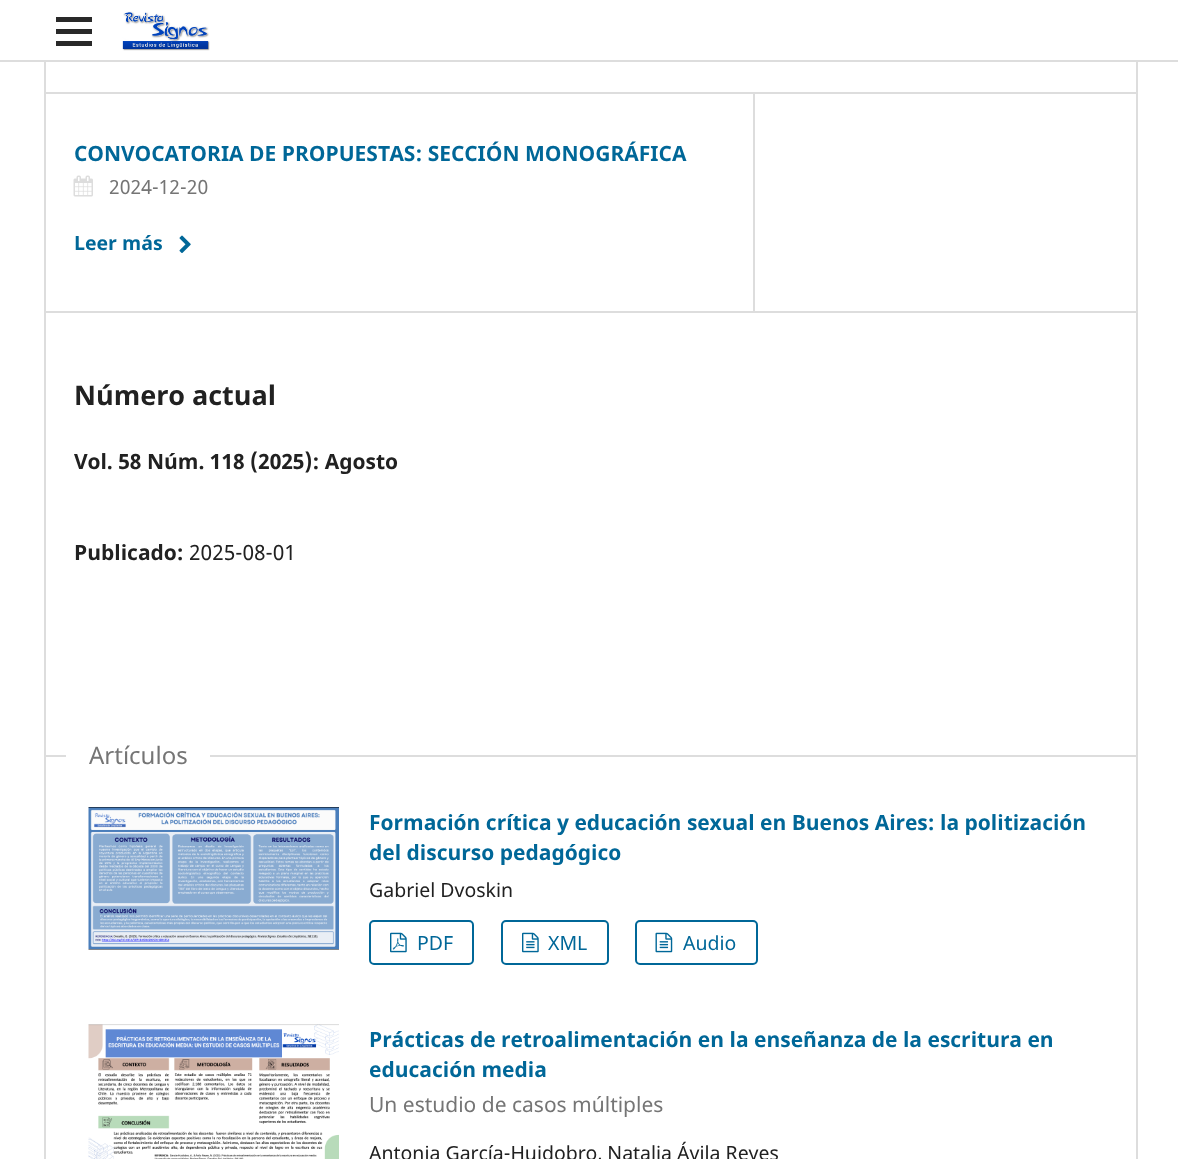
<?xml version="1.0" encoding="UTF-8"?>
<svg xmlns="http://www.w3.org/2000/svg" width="1178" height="1159">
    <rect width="100%" height="100%" fill="#FFFFFF"/>
    <rect x="0" y="60" width="1178" height="2" fill="#DDDDDD"/>
    <rect x="56" y="41" width="36" height="5" fill="#292929"/>
    <rect x="56" y="17" width="36" height="5" fill="#292929"/>
    <rect x="56" y="29" width="36" height="5" fill="#292929"/>
    <image x="122" y="11" width="88" height="40" href="img_01.png"/>
    <rect x="44" y="92" width="1092" height="2" fill="#DDDDDD"/>
    <rect x="44" y="311" width="1092" height="2" fill="#DDDDDD"/>
    <rect x="44" y="62" width="2" height="1097" fill="#DDDDDD"/>
    <text x="74" y="161" font-family="Noto Sans" font-size="21" font-weight="700" fill="#006798">CONVOCATORIA DE PROPUESTAS: SECCIÓN MONOGRÁFICA</text>
    <rect x="753" y="93" width="2" height="218" fill="#DDDDDD"/>
    <image x="73" y="175" width="20" height="22" href="img_02.png"/>
    <text x="109" y="194" font-family="Noto Sans" font-size="19.5" fill="#757575">2024-12-20</text>
    <text x="74" y="250" font-family="Noto Sans" font-size="19.5" font-weight="700" fill="#006798">Leer más</text>
    <image x="179" y="235" width="12" height="18" href="img_03.png"/>
    <text x="74" y="405" font-family="Noto Sans" font-size="27" font-weight="700" fill="#212121">Número actual</text>
    <text x="74" y="469" font-family="Noto Sans" font-size="21" font-weight="700" fill="#212121">Vol. 58 Núm. 118 (2025): Agosto</text>
    <text x="74" y="560" font-family="Noto Sans" font-size="21" font-weight="700" fill="#212121">Publicado:</text>
    <text x="189" y="560" font-family="Noto Sans" font-size="21" fill="#212121">2025-08-01</text>
    <rect x="44" y="755" width="1092" height="2" fill="#DDDDDD"/>
    <rect x="66" y="755" width="144" height="2" fill="#FFFFFF"/>
    <text x="89" y="764" font-family="Noto Sans" font-size="24" fill="#757575">Artículos</text>
    <image x="88" y="807" width="251" height="143" href="img_04.png"/>
    <text font-family="Noto Sans" font-size="21" font-weight="700" fill="#006798">
        <tspan x="369" y="830">Formación crítica y educación sexual en Buenos Aires: la politización</tspan>
        <tspan x="369" y="860">del discurso pedagógico</tspan>
    </text>
    <text x="369" y="897" font-family="Noto Sans" font-size="19.5" fill="#212121">Gabriel Dvoskin</text>
    <rect x="370" y="921" width="103" height="43" rx="4" fill="none" stroke="#006798" stroke-width="2"/>
    <image x="390" y="932" width="17" height="21" href="img_05.png"/>
    <text x="417" y="950" font-family="Noto Sans" font-size="19.5" fill="#006798">PDF</text>
    <rect x="502" y="921" width="106" height="43" rx="4" fill="none" stroke="#006798" stroke-width="2"/>
    <image x="522" y="932" width="17" height="21" href="img_06.png"/>
    <text x="548" y="950" font-family="Noto Sans" font-size="19.5" fill="#006798">XML</text>
    <rect x="636" y="921" width="121" height="43" rx="4" fill="none" stroke="#006798" stroke-width="2"/>
    <image x="655" y="932" width="18" height="21" href="img_07.png"/>
    <text x="683" y="950" font-family="Noto Sans" font-size="19.5" fill="#006798">Audio</text>
    <image x="88" y="1024" width="251" height="135" href="img_08.png"/>
    <text font-family="Noto Sans" font-size="21" font-weight="700" fill="#006798">
        <tspan x="369" y="1047">Prácticas de retroalimentación en la enseñanza de la escritura en</tspan>
        <tspan x="369" y="1077">educación media</tspan>
    </text>
    <text x="369" y="1112" font-family="Noto Sans" font-size="21" fill="#757575">Un estudio de casos múltiples</text>
    <text x="369" y="1160" font-family="Noto Sans" font-size="19.5" fill="#212121">Antonia García-Huidobro, Natalia Ávila Reyes</text>
    <rect x="1136" y="62" width="2" height="1097" fill="#DDDDDD"/>
</svg>
